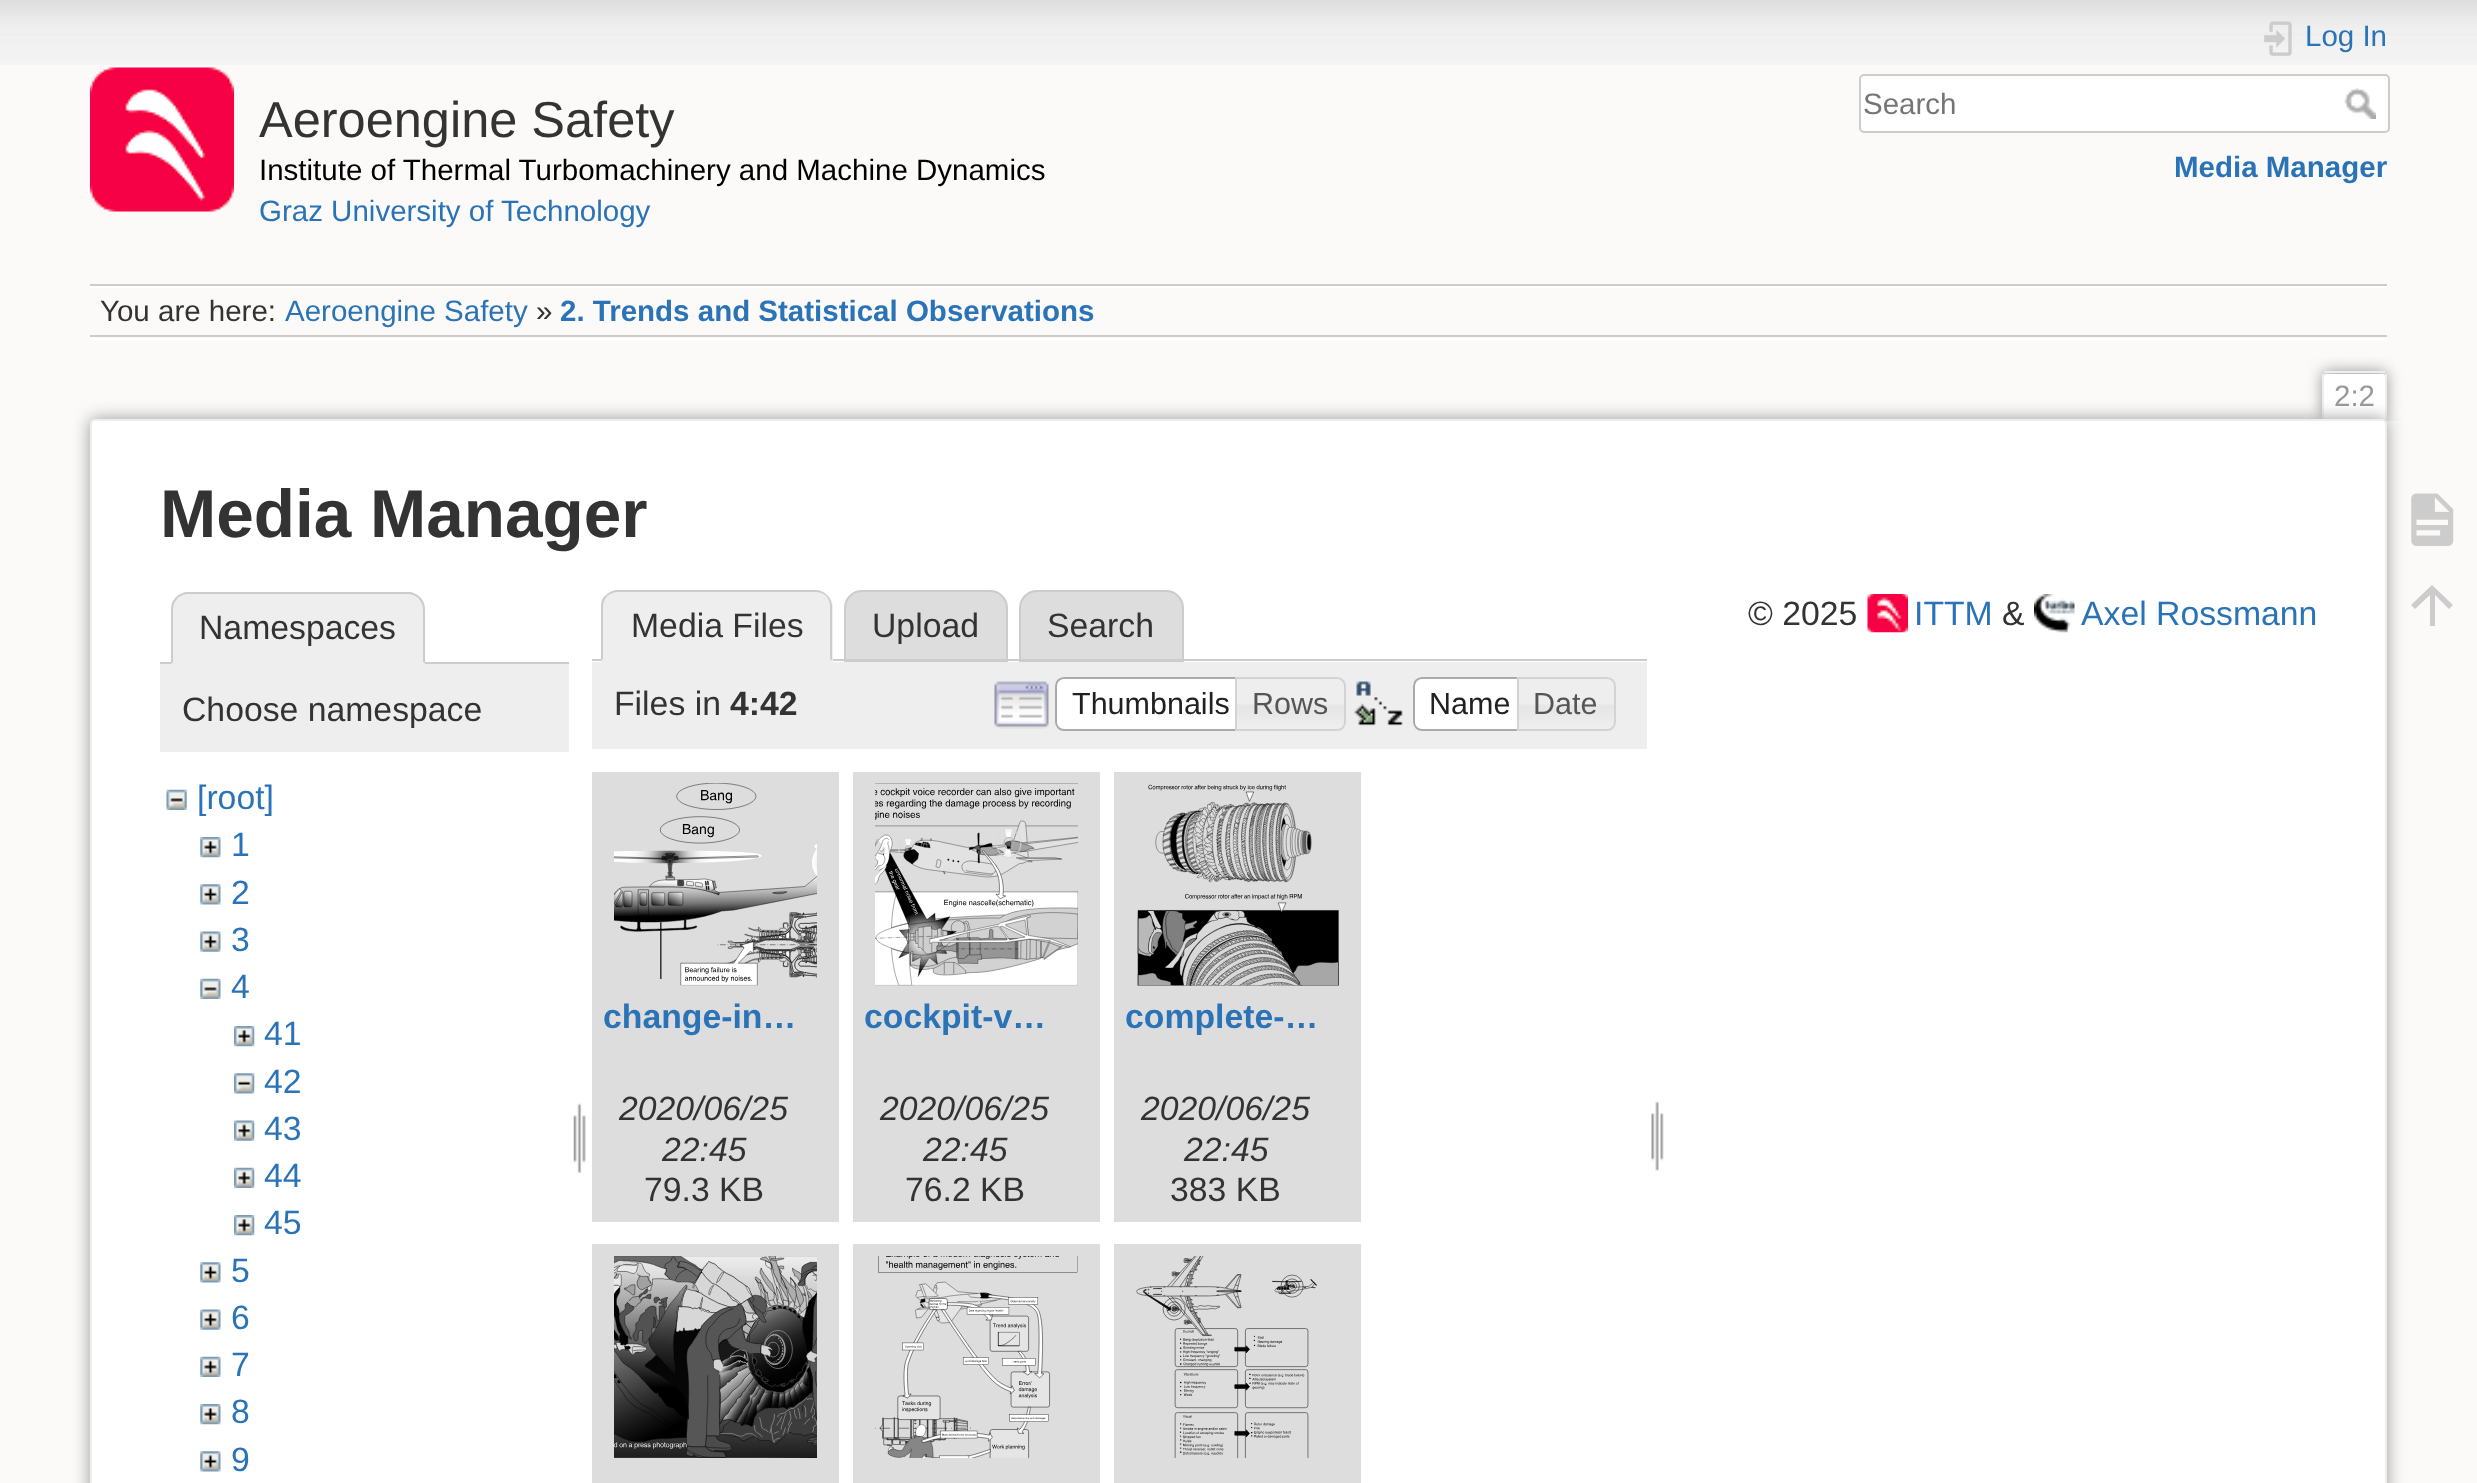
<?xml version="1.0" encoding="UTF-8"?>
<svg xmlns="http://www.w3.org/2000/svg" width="2477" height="1483">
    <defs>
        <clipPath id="clip1"><rect x="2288" y="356" width="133" height="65"/></clipPath>
        <filter id="blur1" x="-50%" y="-200%" width="200%" height="500%"><feGaussianBlur stdDeviation="7.5"/></filter>
        <filter id="blur2" x="-50%" y="-200%" width="200%" height="500%"><feGaussianBlur stdDeviation="8.5"/></filter>
    </defs>
    <rect width="100%" height="100%" fill="#FBFAF9"/>
    <image x="0" y="0" width="2477" height="65" href="img_01.png"/>
    <image x="90" y="67" width="144" height="145" href="img_02.png"/>
    <text x="259" y="137" font-family="Liberation Sans" font-size="50.5" fill="#333333">Aeroengine Safety</text>
    <text x="259" y="180" font-family="Liberation Sans" font-size="29.5" fill="#000000">Institute of Thermal Turbomachinery and Machine Dynamics</text>
    <text x="259" y="221" font-family="Liberation Sans" font-size="29.5" fill="#2B73B7">Graz University of Technology</text>
    <image x="2264" y="21" width="28" height="35" href="img_03.png"/>
    <text x="2305" y="46" font-family="Liberation Sans" font-size="29.5" fill="#2B73B7">Log In</text>
    <rect x="1860" y="75" width="529" height="57" rx="4" fill="#FFFFFF" stroke="#CCCCCC" stroke-width="2"/>
    <text x="1863" y="114" font-family="Liberation Sans" font-size="29.5" fill="#757575">Search</text>
    <image x="2344" y="88" width="32" height="31" href="img_04.png"/>
    <text x="2174" y="177" font-family="Liberation Sans" font-size="29.5" font-weight="700" fill="#2B73B7">Media Manager</text>
    <rect x="90" y="284" width="2297" height="2" fill="#CCCCCC"/>
    <rect x="90" y="338" width="2297" height="2" fill="#FFFFFF"/>
    <rect x="90" y="286" width="2297" height="2" fill="#FFFFFF"/>
    <rect x="90" y="335" width="2297" height="2" fill="#CCCCCC"/>
    <text x="100" y="321" font-family="Liberation Sans" font-size="29.5" fill="#333333">You are here:</text>
    <text x="285" y="321" font-family="Liberation Sans" font-size="29.5" fill="#2B73B7">Aeroengine Safety</text>
    <text x="536" y="321" font-family="Liberation Sans" font-size="29.5" fill="#333333">»</text>
    <text x="560" y="321" font-family="Liberation Sans" font-size="29.5" font-weight="700" fill="#2B73B7">2. Trends and Statistical Observations</text>
    <g clip-path="url(#clip1)">
        <rect x="2322" y="371" width="65" height="50" rx="5" fill="#999999" filter="url(#blur1)"/>
    </g>
    <path d="M 2326 374 H 2383 C 2384 374 2385 375 2385 376 V 421 H 2324 V 376 C 2324 375 2325 374 2326 374 Z" fill="#FFFFFF"/>
    <rect x="2324" y="371" width="61" height="2" fill="#EEEEEE"/>
    <rect x="2385" y="374" width="2" height="47" fill="#EEEEEE"/>
    <rect x="2322" y="374" width="2" height="47" fill="#EEEEEE"/>
    <text x="2334" y="406" font-family="Liberation Sans" font-size="29.5" fill="#999999">2:2</text>
    <rect x="90" y="419" width="2297" height="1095" rx="5" fill="#999999" filter="url(#blur2)"/>
    <rect x="91" y="420" width="2295" height="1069" rx="4" fill="#FFFFFF" stroke="#EEEEEE" stroke-width="2"/>
    <text x="160" y="537" font-family="Liberation Sans" font-size="67.5" font-weight="700" fill="#333333">Media Manager</text>
    <rect x="160" y="662" width="409" height="2" fill="#CCCCCC"/>
    <path d="M 189 592 H 407 C 417 592 425 600 425 610 V 664 H 171 V 610 C 171 600 179 592 189 592 Z" fill="#EEEEEE"/>
    <path d="M 188 592 C 183 592 179 594 176 597 L 178 598 C 180 596 184 594 188 594 H 408 C 412 594 416 596 418 598 L 420 597 C 417 594 413 592 408 592 Z" fill="#CCCCCC"/>
    <path d="M 425 664 V 609 C 425 604 423 600 420 597 L 418 598 C 421 601 423 605 423 609 V 662 Z" fill="#CCCCCC"/>
    <path d="M 425 664 H 171 L 173 662 H 423 Z" fill="#EEEEEE"/>
    <path d="M 171 664 L 173 662 V 609 C 173 605 175 601 178 598 L 176 597 C 173 600 171 604 171 609 Z" fill="#CCCCCC"/>
    <text x="199" y="639" font-family="Liberation Sans" font-size="33.75" fill="#333333">Namespaces</text>
    <rect x="160" y="664" width="409" height="88" fill="#EEEEEE"/>
    <text x="182" y="721" font-family="Liberation Sans" font-size="33.75" fill="#333333">Choose namespace</text>
    <image x="166" y="789" width="21" height="21" href="img_05.png"/>
    <text x="197" y="809" font-family="Liberation Sans" font-size="33.75" fill="#2B73B7">[root]</text>
    <image x="200" y="837" width="21" height="21" href="img_06.png"/>
    <text x="231" y="856" font-family="Liberation Sans" font-size="33.75" fill="#2B73B7">1</text>
    <image x="200" y="884" width="21" height="21" href="img_07.png"/>
    <text x="231" y="904" font-family="Liberation Sans" font-size="33.75" fill="#2B73B7">2</text>
    <image x="200" y="931" width="21" height="21" href="img_08.png"/>
    <text x="231" y="951" font-family="Liberation Sans" font-size="33.75" fill="#2B73B7">3</text>
    <image x="200" y="978" width="21" height="21" href="img_09.png"/>
    <text x="231" y="998" font-family="Liberation Sans" font-size="33.75" fill="#2B73B7">4</text>
    <image x="234" y="1026" width="21" height="21" href="img_10.png"/>
    <text x="264" y="1045" font-family="Liberation Sans" font-size="33.75" fill="#2B73B7">41</text>
    <image x="234" y="1073" width="21" height="21" href="img_11.png"/>
    <text x="264" y="1093" font-family="Liberation Sans" font-size="33.75" fill="#2B73B7">42</text>
    <image x="234" y="1120" width="21" height="21" href="img_12.png"/>
    <text x="264" y="1140" font-family="Liberation Sans" font-size="33.75" fill="#2B73B7">43</text>
    <image x="234" y="1167" width="21" height="21" href="img_13.png"/>
    <text x="264" y="1187" font-family="Liberation Sans" font-size="33.75" fill="#2B73B7">44</text>
    <image x="234" y="1215" width="21" height="21" href="img_10.png"/>
    <text x="264" y="1234" font-family="Liberation Sans" font-size="33.75" fill="#2B73B7">45</text>
    <image x="200" y="1262" width="21" height="21" href="img_07.png"/>
    <text x="231" y="1282" font-family="Liberation Sans" font-size="33.75" fill="#2B73B7">5</text>
    <image x="200" y="1309" width="21" height="21" href="img_08.png"/>
    <text x="231" y="1329" font-family="Liberation Sans" font-size="33.75" fill="#2B73B7">6</text>
    <image x="200" y="1356" width="21" height="21" href="img_14.png"/>
    <text x="231" y="1376" font-family="Liberation Sans" font-size="33.75" fill="#2B73B7">7</text>
    <image x="200" y="1404" width="21" height="21" href="img_06.png"/>
    <text x="231" y="1423" font-family="Liberation Sans" font-size="33.75" fill="#2B73B7">8</text>
    <image x="200" y="1451" width="21" height="21" href="img_07.png"/>
    <text x="231" y="1471" font-family="Liberation Sans" font-size="33.75" fill="#2B73B7">9</text>
    <image x="573" y="1102" width="13" height="71" href="img_15.png"/>
    <path d="M 862 591 H 990 C 999.5 591 1007 598.5 1007 608 V 661 H 845 V 608 C 845 598.5 852.5 591 862 591 Z" fill="#DDDDDD" stroke="#CCCCCC" stroke-width="2"/>
    <path d="M 1037 591 H 1166 C 1175.5 591 1183 598.5 1183 608 V 661 H 1020 V 608 C 1020 598.5 1027.5 591 1037 591 Z" fill="#DDDDDD" stroke="#CCCCCC" stroke-width="2"/>
    <rect x="592" y="659" width="1055" height="2" fill="#CCCCCC"/>
    <path d="M 619 590 H 815 C 825 590 833 598 833 608 V 662 H 601 V 608 C 601 598 609 590 619 590 Z" fill="#EEEEEE"/>
    <path d="M 618 590 C 613 590 609 592 606 595 L 607 596 C 610 594 614 592 618 592 H 816 C 820 592 824 594 826 596 L 827 595 C 824 592 820 590 816 590 Z" fill="#CCCCCC"/>
    <path d="M 832 661 V 606 C 832 602 830 598 827 595 L 826 596 C 828 598 830 602 830 606 V 659 Z" fill="#CCCCCC"/>
    <path d="M 601 662 L 603 659 H 830 L 832 661 V 662 Z" fill="#EEEEEE"/>
    <path d="M 606 595 C 603 597 601 601 601 606 V 661 L 603 659 V 606 C 603 602 605 599 607 596 Z" fill="#CCCCCC"/>
    <text x="631" y="637" font-family="Liberation Sans" font-size="33.75" fill="#333333">Media Files</text>
    <text x="872" y="637" font-family="Liberation Sans" font-size="33.75" fill="#333333">Upload</text>
    <text x="1047" y="637" font-family="Liberation Sans" font-size="33.75" fill="#333333">Search</text>
    <rect x="592" y="662" width="1055" height="87" fill="#EEEEEE"/>
    <text x="614" y="715" font-family="Liberation Sans" font-size="33.75" fill="#333333">Files in</text>
    <text x="730" y="715" font-family="Liberation Sans" font-size="33.75" font-weight="700" fill="#333333">4:42</text>
    <image x="994" y="681" width="55" height="48" href="img_16.png"/>
    <path d="M 1064 677 H 1247 V 731 H 1064 C 1059 731 1055 727 1055 722 V 686 C 1055 681 1059 677 1064 677 Z" fill="#FFFFFF"/>
    <rect x="1061" y="730" width="1" height="1" fill="#FDFDFD"/>
    <path d="M 1064 678 H 1246 V 730 H 1064 C 1059.5 730 1056 726.5 1056 722 V 686 C 1056 681.5 1059.5 678 1064 678 Z" fill="none" stroke="#AAAAAA" stroke-width="2"/>
    <text x="1072" y="714" font-family="Liberation Sans" font-size="30.5" fill="#212121">Thumbnails</text>
    <image x="1237" y="677" width="108" height="54" href="img_17.png"/>
    <path d="M 1236 678 H 1337 C 1341.5 678 1345 681.5 1345 686 V 722 C 1345 726.5 1341.5 730 1337 730 H 1236 Z" fill="none" stroke="#D3D3D3" stroke-width="2"/>
    <text x="1252" y="714" font-family="Liberation Sans" font-size="30.5" fill="#555555">Rows</text>
    <image x="1354" y="681" width="49" height="45" href="img_18.png"/>
    <path d="M 1422 677 H 1528 V 731 H 1422 C 1417 731 1413 727 1413 722 V 686 C 1413 681 1417 677 1422 677 Z" fill="#FFFFFF"/>
    <image x="1413" y="725" width="7" height="6" href="img_19.png"/>
    <path d="M 1422 678 H 1527 V 730 H 1422 C 1417.5 730 1414 726.5 1414 722 V 686 C 1414 681.5 1417.5 678 1422 678 Z" fill="none" stroke="#AAAAAA" stroke-width="2"/>
    <text x="1429" y="714" font-family="Liberation Sans" font-size="30.5" fill="#212121">Name</text>
    <image x="1516" y="677" width="99" height="54" href="img_20.png"/>
    <path d="M 1518 678 H 1607 C 1611.5 678 1615 681.5 1615 686 V 722 C 1615 726.5 1611.5 730 1607 730 H 1518 Z" fill="none" stroke="#D3D3D3" stroke-width="2"/>
    <text x="1533" y="714" font-family="Liberation Sans" font-size="30.5" fill="#555555">Date</text>
    <rect x="592" y="772" width="247" height="450" fill="#DDDDDD"/>
    <image x="614" y="783" width="203" height="203" href="img_21.png"/>
    <text x="603" y="1028" font-family="Liberation Sans" font-size="33.75" font-weight="700" fill="#2B73B7">change-in…</text>
    <text x="619" y="1120" font-family="Liberation Sans" font-size="33.75" font-style="italic" fill="#333333">2020/06/25</text>
    <text x="662" y="1161" font-family="Liberation Sans" font-size="33.75" font-style="italic" fill="#333333">22:45</text>
    <text x="644" y="1201" font-family="Liberation Sans" font-size="33.75" fill="#333333">79.3 KB</text>
    <rect x="853" y="772" width="247" height="450" fill="#DDDDDD"/>
    <image x="875" y="783" width="203" height="203" href="img_22.png"/>
    <text x="864" y="1028" font-family="Liberation Sans" font-size="33.75" font-weight="700" fill="#2B73B7">cockpit-v…</text>
    <text x="880" y="1120" font-family="Liberation Sans" font-size="33.75" font-style="italic" fill="#333333">2020/06/25</text>
    <text x="923" y="1161" font-family="Liberation Sans" font-size="33.75" font-style="italic" fill="#333333">22:45</text>
    <text x="905" y="1201" font-family="Liberation Sans" font-size="33.75" fill="#333333">76.2 KB</text>
    <rect x="1114" y="772" width="247" height="450" fill="#DDDDDD"/>
    <image x="1137" y="784" width="202" height="202" href="img_23.png"/>
    <text x="1125" y="1028" font-family="Liberation Sans" font-size="33.75" font-weight="700" fill="#2B73B7">complete-…</text>
    <text x="1141" y="1120" font-family="Liberation Sans" font-size="33.75" font-style="italic" fill="#333333">2020/06/25</text>
    <text x="1184" y="1161" font-family="Liberation Sans" font-size="33.75" font-style="italic" fill="#333333">22:45</text>
    <text x="1170" y="1201" font-family="Liberation Sans" font-size="33.75" fill="#333333">383 KB</text>
    <rect x="592" y="1244" width="247" height="239" fill="#DDDDDD"/>
    <image x="614" y="1256" width="203" height="202" href="img_24.png"/>
    <rect x="853" y="1244" width="247" height="239" fill="#DDDDDD"/>
    <image x="875" y="1256" width="203" height="202" href="img_25.png"/>
    <rect x="1114" y="1244" width="247" height="239" fill="#DDDDDD"/>
    <image x="1136" y="1256" width="181" height="202" href="img_26.png"/>
    <image x="1651" y="1100" width="13" height="71" href="img_27.png"/>
    <text x="1748" y="625" font-family="Liberation Sans" font-size="33.75" fill="#333333">© 2025</text>
    <image x="1867" y="594" width="41" height="39" href="img_28.png"/>
    <text x="1914" y="625" font-family="Liberation Sans" font-size="33.75" fill="#2B73B7">ITTM</text>
    <text x="2002" y="625" font-family="Liberation Sans" font-size="33.75" fill="#333333">&amp;</text>
    <image x="2034" y="594" width="41" height="39" href="img_29.png"/>
    <text x="2081" y="625" font-family="Liberation Sans" font-size="33.75" fill="#2B73B7">Axel Rossmann</text>
    <image x="2411" y="493" width="43" height="53" href="img_30.png"/>
    <path d="M 2435 626 H 2430 V 595 L 2415 609 L 2411 605 L 2432 585 L 2453 605 L 2449 609 L 2435 595 Z" fill="#CCCCCC"/>
</svg>
